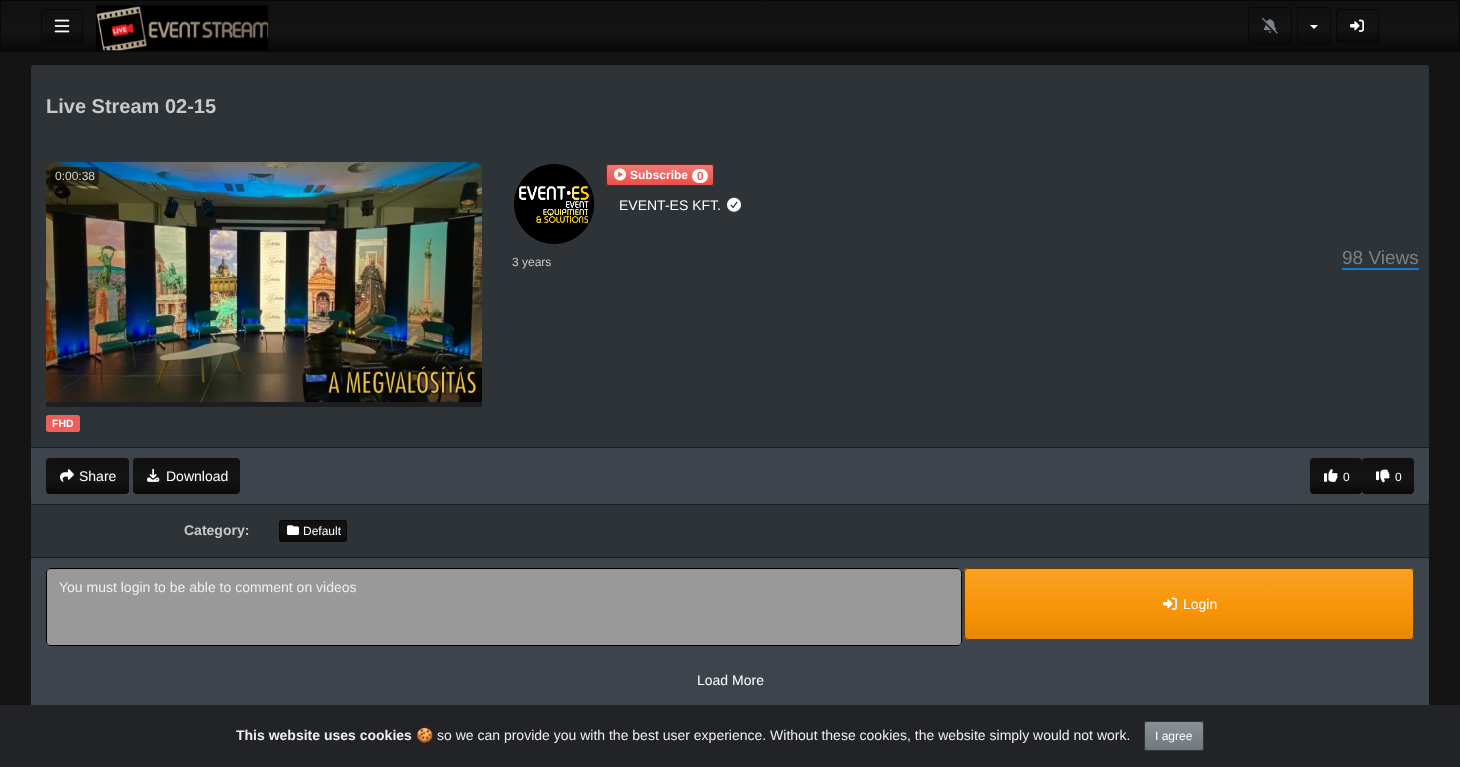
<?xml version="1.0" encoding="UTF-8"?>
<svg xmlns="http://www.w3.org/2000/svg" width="1460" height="767">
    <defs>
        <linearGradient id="g1" gradientUnits="userSpaceOnUse" x1="730" y1="1" x2="730" y2="51"><stop offset="0" stop-color="#101010"/><stop offset="0.6" stop-color="#141414"/><stop offset="1" stop-color="#090909"/></linearGradient>
        <clipPath id="clip1"><rect x="41" y="9" width="42" height="34" rx="4"/></clipPath>
        <linearGradient id="g2" gradientUnits="userSpaceOnUse" x1="62" y1="10" x2="62" y2="42"><stop offset="0" stop-color="#101010"/><stop offset="0.6" stop-color="#141414"/><stop offset="1" stop-color="#090909"/></linearGradient>
        <clipPath id="clip2"><rect x="1248" y="7" width="44" height="38" rx="4"/></clipPath>
        <linearGradient id="g3" gradientUnits="userSpaceOnUse" x1="1270" y1="8" x2="1270" y2="44"><stop offset="0" stop-color="#101010"/><stop offset="0.6" stop-color="#141414"/><stop offset="1" stop-color="#090909"/></linearGradient>
        <linearGradient id="g4" gradientUnits="userSpaceOnUse" x1="1314" y1="8" x2="1314" y2="44"><stop offset="0" stop-color="#101010"/><stop offset="0.6" stop-color="#141414"/><stop offset="1" stop-color="#090909"/></linearGradient>
        <clipPath id="clip3"><rect x="1336" y="9" width="43" height="34" rx="4"/></clipPath>
        <linearGradient id="g5" gradientUnits="userSpaceOnUse" x1="1358" y1="10" x2="1358" y2="42"><stop offset="0" stop-color="#101010"/><stop offset="0.6" stop-color="#141414"/><stop offset="1" stop-color="#090909"/></linearGradient>
        <linearGradient id="g6" gradientUnits="userSpaceOnUse" x1="660" y1="165" x2="660" y2="185"><stop offset="0" stop-color="#F17A77"/><stop offset="0.6" stop-color="#EE5F5B"/><stop offset="1" stop-color="#EC4D49"/></linearGradient>
        <linearGradient id="g7" gradientUnits="userSpaceOnUse" x1="88" y1="458" x2="88" y2="494"><stop offset="0" stop-color="#101010"/><stop offset="0.6" stop-color="#141414"/><stop offset="1" stop-color="#090909"/></linearGradient>
        <linearGradient id="g8" gradientUnits="userSpaceOnUse" x1="187" y1="458" x2="187" y2="494"><stop offset="0" stop-color="#101010"/><stop offset="0.6" stop-color="#141414"/><stop offset="1" stop-color="#090909"/></linearGradient>
        <linearGradient id="g9" gradientUnits="userSpaceOnUse" x1="1336" y1="458" x2="1336" y2="494"><stop offset="0" stop-color="#101010"/><stop offset="0.6" stop-color="#141414"/><stop offset="1" stop-color="#090909"/></linearGradient>
        <linearGradient id="g10" gradientUnits="userSpaceOnUse" x1="1388" y1="458" x2="1388" y2="494"><stop offset="0" stop-color="#101010"/><stop offset="0.6" stop-color="#141414"/><stop offset="1" stop-color="#090909"/></linearGradient>
        <linearGradient id="g11" gradientUnits="userSpaceOnUse" x1="313" y1="521" x2="313" y2="541"><stop offset="0" stop-color="#101010"/><stop offset="0.6" stop-color="#141414"/><stop offset="1" stop-color="#090909"/></linearGradient>
        <clipPath id="clip4"><rect x="964" y="568" width="450" height="72" rx="4"/></clipPath>
        <linearGradient id="g12" gradientUnits="userSpaceOnUse" x1="1189" y1="569" x2="1189" y2="639"><stop offset="0" stop-color="#FAA123"/><stop offset="0.6" stop-color="#F89406"/><stop offset="1" stop-color="#E48806"/></linearGradient>
        <linearGradient id="g13" gradientUnits="userSpaceOnUse" x1="1174" y1="722" x2="1174" y2="750"><stop offset="0" stop-color="#8A9196"/><stop offset="0.6" stop-color="#7A8288"/><stop offset="1" stop-color="#70787D"/></linearGradient>
    </defs>
    <rect width="100%" height="100%" fill="#141414"/>
    <rect x="1" y="1" width="1458" height="50" fill="url(#g1)"/>
    <rect x="0.5" y="0.5" width="1459" height="51" fill="none" stroke="#080808"/>
    <rect x="41" y="9" width="42" height="34" rx="4" fill="#141414"/>
    <g clip-path="url(#clip1)">
        <rect x="42" y="10" width="40" height="32" fill="url(#g2)"/>
    </g>
    <rect x="41.5" y="9.5" width="41" height="33" rx="3.5" fill="none" stroke="#000000" stroke-opacity="0.6"/>
    <image x="54" y="19" width="16" height="14" href="img_01.png"/>
    <image x="96" y="5" width="173" height="46" href="img_02.png"/>
    <rect x="1248" y="7" width="44" height="38" rx="4" fill="#141414"/>
    <g clip-path="url(#clip2)">
        <rect x="1249" y="8" width="42" height="36" fill="url(#g3)"/>
    </g>
    <rect x="1248.5" y="7.5" width="43" height="37" rx="3.5" fill="none" stroke="#000000" stroke-opacity="0.6"/>
    <image x="1262" y="17" width="16" height="17" href="img_03.png"/>
    <path d="M 1297 7 H 1327 C 1329 7 1331 9 1331 11 V 41 C 1331 43 1329 45 1327 45 H 1297 Z" fill="#141414"/>
    <rect x="1298" y="8" width="32" height="36" fill="url(#g4)"/>
    <path d="M 1297.5 7.5 H 1327 C 1329 7.5 1330.5 9 1330.5 11 V 41 C 1330.5 43 1329 44.5 1327 44.5 H 1297.5 Z" fill="none" stroke="#000000" stroke-opacity="0.6"/>
    <path d="M 1310 25 H 1318 L 1314 29 Z" fill="#FFFFFF"/>
    <rect x="1336" y="9" width="43" height="34" rx="4" fill="#141414"/>
    <g clip-path="url(#clip3)">
        <rect x="1337" y="10" width="41" height="32" fill="url(#g5)"/>
    </g>
    <rect x="1336.5" y="9.5" width="42" height="33" rx="3.5" fill="none" stroke="#000000" stroke-opacity="0.6"/>
    <image x="1350" y="19" width="14" height="13" href="img_04.png"/>
    <rect x="30" y="64" width="1400" height="646" rx="4" fill="#2E3338"/>
    <rect x="30.5" y="64.5" width="1399" height="645" rx="3.5" fill="none" stroke="#000000" stroke-opacity="0.6"/>
    <text x="46" y="113" font-family="Liberation Sans" font-size="20" font-weight="700" fill="#C8C8C8">Live Stream 02-15</text>
    <image x="46" y="162" width="436" height="240" href="img_05.png"/>
    <rect x="51" y="167" width="48" height="19" rx="5" fill="#000000" fill-opacity="0.48"/>
    <text x="55" y="180" font-family="Liberation Sans" font-size="12" fill="#D2D2CF">0:00:38</text>
    <rect x="46" y="402" width="436" height="5" fill="#1C1E22"/>
    <rect x="46" y="415" width="34" height="17" rx="2.5" fill="#EE5F5B"/>
    <text x="52" y="427" font-family="Liberation Sans" font-size="10.5" font-weight="700" fill="#FFFFFF">FHD</text>
    <image x="514" y="164" width="80" height="80" href="img_06.png"/>
    <rect x="606" y="164" width="108" height="22" rx="3" fill="#EE5F5B"/>
    <rect x="607" y="165" width="106" height="20" fill="url(#g6)"/>
    <rect x="606.5" y="164.5" width="107" height="21" rx="2.5" fill="none" stroke="#000000" stroke-opacity="0.6"/>
    <image x="614" y="168" width="12" height="13" href="img_07.png"/>
    <text x="630" y="179" font-family="Liberation Sans" font-size="12" font-weight="700" fill="#FFFFFF">Subscribe</text>
    <rect x="692" y="169" width="16" height="14" rx="7" fill="#FFFFFF"/>
    <text x="697" y="180" font-family="Liberation Sans" font-size="12" font-weight="700" fill="#EE5F5B">0</text>
    <text x="619" y="210" font-family="Liberation Sans" font-size="14" fill="#FFFFFF">EVENT-ES KFT.</text>
    <image x="727" y="197" width="14" height="15" href="img_08.png"/>
    <text x="512" y="266" font-family="Liberation Sans" font-size="12" fill="#C8C8C8">3 years</text>
    <rect x="1342" y="268" width="77" height="2" fill="#167AC6"/>
    <text x="1342" y="264" font-family="Liberation Sans" font-size="19" fill="#7A8288">98 Views</text>
    <path d="M 31 447 H 1429 V 501 C 1429 502.5 1427.5 504 1426 504 H 34 C 32.5 504 31 502.5 31 501 Z" fill="#3E444C"/>
    <rect x="31" y="447" width="1398" height="1" fill="#191B1E"/>
    <rect x="46" y="458" width="83" height="36" rx="4" fill="url(#g7)"/>
    <image x="60" y="469" width="14" height="13" href="img_09.png"/>
    <text x="79" y="481" font-family="Liberation Sans" font-size="14" fill="#FFFFFF">Share</text>
    <rect x="133" y="458" width="107" height="36" rx="4" fill="url(#g8)"/>
    <image x="147" y="468" width="13" height="14" href="img_10.png"/>
    <text x="166" y="481" font-family="Liberation Sans" font-size="14" fill="#FFFFFF">Download</text>
    <rect x="1310" y="458" width="52" height="36" rx="4" fill="url(#g9)"/>
    <image x="1324" y="469" width="14" height="13" href="img_11.png"/>
    <text x="1343" y="481" font-family="Liberation Sans" font-size="12" fill="#FFFFFF">0</text>
    <rect x="1362" y="458" width="52" height="36" rx="4" fill="url(#g10)"/>
    <image x="1376" y="469" width="14" height="14" href="img_12.png"/>
    <text x="1395" y="481" font-family="Liberation Sans" font-size="12" fill="#FFFFFF">0</text>
    <path d="M 31 504 H 1429 C 1429 504.5 1428.5 505 1428 505 H 32 C 31.5 505 31 504.5 31 504 Z" fill="#191B1E"/>
    <text x="184" y="535" font-family="Liberation Sans" font-size="14" font-weight="700" fill="#C8C8C8">Category:</text>
    <rect x="279" y="520" width="68" height="22" rx="3" fill="#141414"/>
    <rect x="280" y="521" width="66" height="20" fill="url(#g11)"/>
    <rect x="279.5" y="520.5" width="67" height="21" rx="2.5" fill="none" stroke="#000000" stroke-opacity="0.6"/>
    <image x="287" y="525" width="12" height="10" href="img_13.png"/>
    <text x="303" y="535" font-family="Liberation Sans" font-size="12" fill="#FFFFFF">Default</text>
    <rect x="31" y="558" width="1398" height="147" fill="#3E444C"/>
    <rect x="31" y="557" width="1398" height="1" fill="#191B1E"/>
    <rect x="46" y="568" width="916" height="78" rx="4" fill="#999999"/>
    <path d="M 50 570 H 958 C 960 570 961 571 961 573 C 961 571 960 569 958 569 H 50 C 48 569 47 571 47 573 C 47 571 48 570 50 570 Z" fill="#8E8E8E"/>
    <rect x="46.5" y="568.5" width="915" height="77" rx="3.5" fill="none" stroke="#000000"/>
    <text x="59" y="592" font-family="Liberation Sans" font-size="14" fill="#EEEEEE">You must login to be able to comment on videos</text>
    <rect x="964" y="568" width="450" height="72" rx="4" fill="#F89406"/>
    <g clip-path="url(#clip4)">
        <rect x="965" y="569" width="448" height="70" fill="url(#g12)"/>
    </g>
    <rect x="964.5" y="568.5" width="449" height="71" rx="3.5" fill="none" stroke="#000000" stroke-opacity="0.6"/>
    <image x="1163" y="597" width="14" height="13" href="img_14.png"/>
    <text x="1183" y="609" font-family="Liberation Sans" font-size="14" fill="#FFFFFF">Login</text>
    <text x="697" y="685" font-family="Liberation Sans" font-size="14" fill="#FFFFFF">Load More</text>
    <rect x="0" y="705" width="1460" height="62" fill="#212327"/>
    <text x="236" y="740" font-family="Liberation Sans" font-size="14" font-weight="700" fill="#EEEEEE">This website uses cookies</text>
    <text x="416" y="740" font-family="Noto Color Emoji" font-size="14" fill="#EEEEEE">🍪</text>
    <text x="437" y="740" font-family="Liberation Sans" font-size="14" fill="#EEEEEE">so we can provide you with the best user experience. Without these cookies, the website simply would not work.</text>
    <rect x="1144" y="721" width="60" height="30" rx="3" fill="#7A8288"/>
    <rect x="1145" y="722" width="58" height="28" fill="url(#g13)"/>
    <rect x="1144.5" y="721.5" width="59" height="29" rx="2.5" fill="none" stroke="#000000" stroke-opacity="0.6"/>
    <text x="1155" y="740" font-family="Liberation Sans" font-size="12" fill="#FFFFFF">I agree</text>
</svg>
